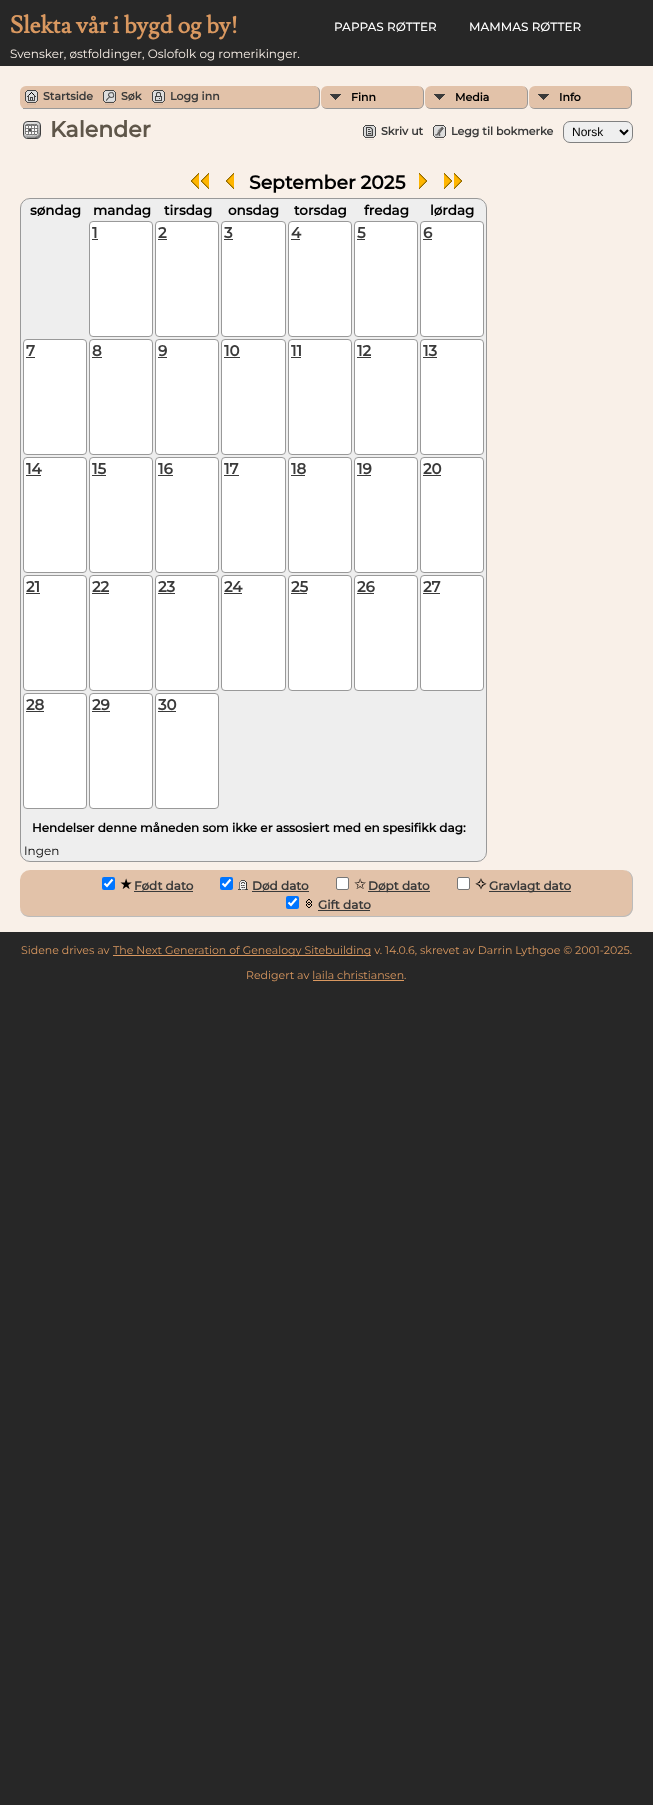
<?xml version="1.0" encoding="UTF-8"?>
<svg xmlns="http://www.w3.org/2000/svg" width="653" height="1805">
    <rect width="100%" height="100%" fill="#272727"/>
    <text x="10" y="33" font-family="Lusitana" font-size="24" font-weight="700" fill="#D99860">Slekta vår i bygd og by!</text>
    <text x="10" y="58" font-family="Montserrat" font-size="12" font-weight="100" fill="#F9F0E8">Svensker, østfoldinger, Oslofolk og romerikinger.</text>
    <text x="334" y="31" font-family="'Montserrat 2'" font-size="12" font-weight="100" fill="#FFFFFF">PAPPAS RØTTER</text>
    <text x="469" y="31" font-family="'Montserrat 2'" font-size="12" font-weight="100" fill="#FFFFFF">MAMMAS RØTTER</text>
    <rect x="0" y="66" width="653" height="866" fill="#F9F0E8"/>
    <rect x="20" y="86" width="613" height="23" rx="6" fill="#E2C2A9"/>
    <rect x="23" y="108" width="286" height="1" fill="#999999"/>
    <image x="25" y="90" width="13" height="15" href="img_01.png"/>
    <text x="43" y="100" font-family="Montserrat" font-size="11" font-weight="700" fill="#3A3A3A">Startside</text>
    <image x="103" y="90" width="13" height="15" href="img_02.png"/>
    <text x="121" y="100" font-family="Montserrat" font-size="11" font-weight="700" fill="#3A3A3A">Søk</text>
    <image x="152" y="90" width="13" height="15" href="img_03.png"/>
    <text x="170" y="100" font-family="Montserrat" font-size="11" font-weight="700" fill="#3A3A3A">Logg inn</text>
    <rect x="314" y="86" width="319" height="23" fill="#F9F0E8"/>
    <path d="M 309 86 H 314 C 317.5 86 320 88.5 320 92 V 103 C 320 106.5 317.5 109 314 109 H 309 Z" fill="#E2C2A9"/>
    <path d="M 309 86 C 313 86 319 85.5 320 91 V 104 C 319 109.5 313 109 309 109 Z M 309 86 H 315 C 320 87.5 319 94 319 97.5 C 319 107.5 318.5 108 309 108 Z" fill="#999999" fill-rule="evenodd"/>
    <rect x="321" y="86" width="103" height="23" rx="6" fill="#E2C2A9"/>
    <image x="330" y="94" width="11" height="6" href="img_04.png"/>
    <path d="M 327 86 H 418 C 421 86 424 89 424 92 V 103 C 424 106 421 109 418 109 H 327 C 324 109 321 106 321 103 V 92 C 321 89 324 86 327 86 Z M 327 86 H 418 C 421 86 423 89 423 92 V 103 C 423 106 421 108 418 108 H 327 C 324 108 321 106 321 103 V 92 C 321 89 324 86 327 86 Z" fill="#999999" fill-rule="evenodd"/>
    <text x="351" y="101" font-family="Montserrat" font-size="11" font-weight="700" fill="#000000">Finn</text>
    <rect x="425" y="86" width="103" height="23" rx="6" fill="#E2C2A9"/>
    <image x="434" y="94" width="11" height="6" href="img_04.png"/>
    <path d="M 431 86 H 522 C 525 86 528 89 528 92 V 103 C 528 106 525 109 522 109 H 431 C 428 109 425 106 425 103 V 92 C 425 89 428 86 431 86 Z M 431 86 H 522 C 525 86 527 89 527 92 V 103 C 527 106 525 108 522 108 H 431 C 428 108 425 106 425 103 V 92 C 425 89 428 86 431 86 Z" fill="#999999" fill-rule="evenodd"/>
    <text x="455" y="101" font-family="Montserrat" font-size="11" font-weight="700" fill="#000000">Media</text>
    <rect x="529" y="86" width="103" height="23" rx="6" fill="#E2C2A9"/>
    <image x="538" y="94" width="11" height="6" href="img_04.png"/>
    <path d="M 535 86 H 626 C 629 86 632 89 632 92 V 103 C 632 106 629 109 626 109 H 535 C 532 109 529 106 529 103 V 92 C 529 89 532 86 535 86 Z M 535 86 H 626 C 629 86 631 89 631 92 V 103 C 631 106 629 108 626 108 H 535 C 532 108 529 106 529 103 V 92 C 529 89 532 86 535 86 Z" fill="#999999" fill-rule="evenodd"/>
    <text x="559" y="101" font-family="Montserrat" font-size="11" font-weight="700" fill="#000000">Info</text>
    <image x="23" y="121" width="18" height="18" href="img_05.png"/>
    <text x="50" y="137" font-family="Montserrat" font-size="22" font-weight="700" fill="#5F5649">Kalender</text>
    <image x="363" y="125" width="13" height="15" href="img_06.png"/>
    <text x="381" y="135" font-family="Montserrat" font-size="11" font-weight="700" fill="#3A3A3A">Skriv ut</text>
    <image x="433" y="125" width="13" height="15" href="img_07.png"/>
    <text x="451" y="135" font-family="Montserrat" font-size="11" font-weight="700" fill="#3A3A3A">Legg til bokmerke</text>
    <rect x="563.5" y="121.5" width="69" height="21" rx="6.5" fill="#EFEFEF" stroke="#808080"/>
    <path d="M 620 130 L 624 134 L 628 130" fill="none" stroke="#000000" stroke-width="2"/>
    <text x="572" y="136" font-family="Liberation Sans" font-size="12" fill="#000000">Norsk</text>
    <image x="191" y="173" width="8" height="16" href="img_08.png"/>
    <image x="201" y="173" width="8" height="16" href="img_08.png"/>
    <image x="226" y="173" width="8" height="16" href="img_08.png"/>
    <text x="249" y="189" font-family="Montserrat" font-size="18.75" font-weight="700" fill="#000000">September 2025</text>
    <image x="419" y="173" width="8" height="16" href="img_09.png"/>
    <image x="444" y="173" width="8" height="16" href="img_09.png"/>
    <image x="454" y="173" width="8" height="16" href="img_09.png"/>
    <rect x="20.5" y="198.5" width="466" height="663" rx="9.5" fill="#EEEEEE" stroke="#999999"/>
    <text x="30" y="215" font-family="Montserrat" font-size="13.5" font-weight="700" fill="#000000">søndag</text>
    <text x="93" y="215" font-family="Montserrat" font-size="13.5" font-weight="700" fill="#000000">mandag</text>
    <text x="164" y="215" font-family="Montserrat" font-size="13.5" font-weight="700" fill="#000000">tirsdag</text>
    <text x="228" y="215" font-family="Montserrat" font-size="13.5" font-weight="700" fill="#000000">onsdag</text>
    <text x="294" y="215" font-family="Montserrat" font-size="13.5" font-weight="700" fill="#000000">torsdag</text>
    <text x="364" y="215" font-family="Montserrat" font-size="13.5" font-weight="700" fill="#000000">fredag</text>
    <text x="430" y="215" font-family="Montserrat" font-size="13.5" font-weight="700" fill="#000000">lørdag</text>
    <rect x="89.5" y="221.5" width="63" height="115" rx="3.5" fill="#FFFFFF" stroke="#999999"/>
    <text x="92" y="238" font-family="Montserrat" font-size="15" font-weight="700" fill="#3A3A3A">1</text>
    <rect x="92" y="239" width="6" height="1" fill="#3A3A3A"/>
    <rect x="155.5" y="221.5" width="63" height="115" rx="3.5" fill="#FFFFFF" stroke="#999999"/>
    <text x="158" y="238" font-family="Montserrat" font-size="15" font-weight="700" fill="#3A3A3A">2</text>
    <rect x="158" y="239" width="9" height="1" fill="#3A3A3A"/>
    <rect x="221.5" y="221.5" width="64" height="115" rx="3.5" fill="#FFFFFF" stroke="#999999"/>
    <text x="224" y="238" font-family="Montserrat" font-size="15" font-weight="700" fill="#3A3A3A">3</text>
    <rect x="224" y="239" width="9" height="1" fill="#3A3A3A"/>
    <rect x="288.5" y="221.5" width="63" height="115" rx="3.5" fill="#FFFFFF" stroke="#999999"/>
    <text x="291" y="238" font-family="Montserrat" font-size="15" font-weight="700" fill="#3A3A3A">4</text>
    <rect x="291" y="239" width="9" height="1" fill="#3A3A3A"/>
    <rect x="354.5" y="221.5" width="63" height="115" rx="3.5" fill="#FFFFFF" stroke="#999999"/>
    <text x="357" y="238" font-family="Montserrat" font-size="15" font-weight="700" fill="#3A3A3A">5</text>
    <rect x="357" y="239" width="8" height="1" fill="#3A3A3A"/>
    <rect x="420.5" y="221.5" width="63" height="115" rx="3.5" fill="#FFFFFF" stroke="#999999"/>
    <text x="423" y="238" font-family="Montserrat" font-size="15" font-weight="700" fill="#3A3A3A">6</text>
    <rect x="423" y="239" width="9" height="1" fill="#3A3A3A"/>
    <rect x="23.5" y="339.5" width="63" height="115" rx="3.5" fill="#FFFFFF" stroke="#999999"/>
    <text x="26" y="356" font-family="Montserrat" font-size="15" font-weight="700" fill="#3A3A3A">7</text>
    <rect x="26" y="357" width="9" height="1" fill="#3A3A3A"/>
    <rect x="89.5" y="339.5" width="63" height="115" rx="3.5" fill="#FFFFFF" stroke="#999999"/>
    <text x="92" y="356" font-family="Montserrat" font-size="15" font-weight="700" fill="#3A3A3A">8</text>
    <rect x="92" y="357" width="10" height="1" fill="#3A3A3A"/>
    <rect x="155.5" y="339.5" width="63" height="115" rx="3.5" fill="#FFFFFF" stroke="#999999"/>
    <text x="158" y="356" font-family="Montserrat" font-size="15" font-weight="700" fill="#3A3A3A">9</text>
    <rect x="158" y="357" width="9" height="1" fill="#3A3A3A"/>
    <rect x="221.5" y="339.5" width="64" height="115" rx="3.5" fill="#FFFFFF" stroke="#999999"/>
    <text x="224" y="356" font-family="Montserrat" font-size="15" font-weight="700" fill="#3A3A3A">10</text>
    <rect x="224" y="357" width="16" height="1" fill="#3A3A3A"/>
    <rect x="288.5" y="339.5" width="63" height="115" rx="3.5" fill="#FFFFFF" stroke="#999999"/>
    <text x="291" y="356" font-family="Montserrat" font-size="15" font-weight="700" fill="#3A3A3A">11</text>
    <rect x="291" y="357" width="10" height="1" fill="#3A3A3A"/>
    <rect x="354.5" y="339.5" width="63" height="115" rx="3.5" fill="#FFFFFF" stroke="#999999"/>
    <text x="357" y="356" font-family="Montserrat" font-size="15" font-weight="700" fill="#3A3A3A">12</text>
    <rect x="357" y="357" width="14" height="1" fill="#3A3A3A"/>
    <rect x="420.5" y="339.5" width="63" height="115" rx="3.5" fill="#FFFFFF" stroke="#999999"/>
    <text x="423" y="356" font-family="Montserrat" font-size="15" font-weight="700" fill="#3A3A3A">13</text>
    <rect x="423" y="357" width="14" height="1" fill="#3A3A3A"/>
    <rect x="23.5" y="457.5" width="63" height="115" rx="3.5" fill="#FFFFFF" stroke="#999999"/>
    <text x="26" y="474" font-family="Montserrat" font-size="15" font-weight="700" fill="#3A3A3A">14</text>
    <rect x="26" y="475" width="15" height="1" fill="#3A3A3A"/>
    <rect x="89.5" y="457.5" width="63" height="115" rx="3.5" fill="#FFFFFF" stroke="#999999"/>
    <text x="92" y="474" font-family="Montserrat" font-size="15" font-weight="700" fill="#3A3A3A">15</text>
    <rect x="92" y="475" width="14" height="1" fill="#3A3A3A"/>
    <rect x="155.5" y="457.5" width="63" height="115" rx="3.5" fill="#FFFFFF" stroke="#999999"/>
    <text x="158" y="474" font-family="Montserrat" font-size="15" font-weight="700" fill="#3A3A3A">16</text>
    <rect x="158" y="475" width="15" height="1" fill="#3A3A3A"/>
    <rect x="221.5" y="457.5" width="64" height="115" rx="3.5" fill="#FFFFFF" stroke="#999999"/>
    <text x="224" y="474" font-family="Montserrat" font-size="15" font-weight="700" fill="#3A3A3A">17</text>
    <rect x="224" y="475" width="15" height="1" fill="#3A3A3A"/>
    <rect x="288.5" y="457.5" width="63" height="115" rx="3.5" fill="#FFFFFF" stroke="#999999"/>
    <text x="291" y="474" font-family="Montserrat" font-size="15" font-weight="700" fill="#3A3A3A">18</text>
    <rect x="291" y="475" width="14" height="1" fill="#3A3A3A"/>
    <rect x="354.5" y="457.5" width="63" height="115" rx="3.5" fill="#FFFFFF" stroke="#999999"/>
    <text x="357" y="474" font-family="Montserrat" font-size="15" font-weight="700" fill="#3A3A3A">19</text>
    <rect x="357" y="475" width="14" height="1" fill="#3A3A3A"/>
    <rect x="420.5" y="457.5" width="63" height="115" rx="3.5" fill="#FFFFFF" stroke="#999999"/>
    <text x="423" y="474" font-family="Montserrat" font-size="15" font-weight="700" fill="#3A3A3A">20</text>
    <rect x="423" y="475" width="18" height="1" fill="#3A3A3A"/>
    <rect x="23.5" y="575.5" width="63" height="115" rx="3.5" fill="#FFFFFF" stroke="#999999"/>
    <text x="26" y="592" font-family="Montserrat" font-size="15" font-weight="700" fill="#3A3A3A">21</text>
    <rect x="26" y="593" width="14" height="1" fill="#3A3A3A"/>
    <rect x="89.5" y="575.5" width="63" height="115" rx="3.5" fill="#FFFFFF" stroke="#999999"/>
    <text x="92" y="592" font-family="Montserrat" font-size="15" font-weight="700" fill="#3A3A3A">22</text>
    <rect x="92" y="593" width="17" height="1" fill="#3A3A3A"/>
    <rect x="155.5" y="575.5" width="63" height="115" rx="3.5" fill="#FFFFFF" stroke="#999999"/>
    <text x="158" y="592" font-family="Montserrat" font-size="15" font-weight="700" fill="#3A3A3A">23</text>
    <rect x="158" y="593" width="17" height="1" fill="#3A3A3A"/>
    <rect x="221.5" y="575.5" width="64" height="115" rx="3.5" fill="#FFFFFF" stroke="#999999"/>
    <text x="224" y="592" font-family="Montserrat" font-size="15" font-weight="700" fill="#3A3A3A">24</text>
    <rect x="224" y="593" width="18" height="1" fill="#3A3A3A"/>
    <rect x="288.5" y="575.5" width="63" height="115" rx="3.5" fill="#FFFFFF" stroke="#999999"/>
    <text x="291" y="592" font-family="Montserrat" font-size="15" font-weight="700" fill="#3A3A3A">25</text>
    <rect x="291" y="593" width="16" height="1" fill="#3A3A3A"/>
    <rect x="354.5" y="575.5" width="63" height="115" rx="3.5" fill="#FFFFFF" stroke="#999999"/>
    <text x="357" y="592" font-family="Montserrat" font-size="15" font-weight="700" fill="#3A3A3A">26</text>
    <rect x="357" y="593" width="17" height="1" fill="#3A3A3A"/>
    <rect x="420.5" y="575.5" width="63" height="115" rx="3.5" fill="#FFFFFF" stroke="#999999"/>
    <text x="423" y="592" font-family="Montserrat" font-size="15" font-weight="700" fill="#3A3A3A">27</text>
    <rect x="423" y="593" width="17" height="1" fill="#3A3A3A"/>
    <rect x="23.5" y="693.5" width="63" height="115" rx="3.5" fill="#FFFFFF" stroke="#999999"/>
    <text x="26" y="710" font-family="Montserrat" font-size="15" font-weight="700" fill="#3A3A3A">28</text>
    <rect x="26" y="711" width="18" height="1" fill="#3A3A3A"/>
    <rect x="89.5" y="693.5" width="63" height="115" rx="3.5" fill="#FFFFFF" stroke="#999999"/>
    <text x="92" y="710" font-family="Montserrat" font-size="15" font-weight="700" fill="#3A3A3A">29</text>
    <rect x="92" y="711" width="18" height="1" fill="#3A3A3A"/>
    <rect x="155.5" y="693.5" width="63" height="115" rx="3.5" fill="#FFFFFF" stroke="#999999"/>
    <text x="158" y="710" font-family="Montserrat" font-size="15" font-weight="700" fill="#3A3A3A">30</text>
    <rect x="158" y="711" width="18" height="1" fill="#3A3A3A"/>
    <text x="32" y="832" font-family="Montserrat" font-size="12" font-weight="700" fill="#000000">Hendelser denne måneden som ikke er assosiert med en spesifikk dag:</text>
    <text x="24" y="855" font-family="Montserrat" font-size="12" font-weight="100" fill="#000000">Ingen</text>
    <rect x="20" y="870" width="613" height="47" rx="10" fill="#E2C2A9"/>
    <path d="M 30 870 H 623 C 629 870 633 874 633 880 V 907 C 633 913 629 917 623 917 H 30 C 24 917 20 913 20 907 V 880 C 20 874 24 870 30 870 Z M 30 870 H 623 C 628 870 632 874 632 880 V 907 C 632 912 628 916 623 916 H 30 C 24 916 20 912 20 907 V 880 C 20 874 24 870 30 870 Z" fill="#BBBBBB" fill-rule="evenodd"/>
    <rect x="102" y="877" width="13" height="13" rx="2" fill="#0075FF"/>
    <path d="M 104.5 883.5 L 107 886 L 112.5 879.5" fill="none" stroke="#FFFFFF" stroke-width="2.1"/>
    <image x="120" y="878" width="12" height="11" href="img_10.png"/>
    <text x="134" y="890" font-family="Montserrat" font-size="12" font-weight="700" fill="#3A3A3A">Født dato</text>
    <rect x="134" y="891" width="59" height="1" fill="#3A3A3A"/>
    <rect x="220" y="877" width="13" height="13" rx="2" fill="#0075FF"/>
    <path d="M 222.5 883.5 L 225 886 L 230.5 879.5" fill="none" stroke="#FFFFFF" stroke-width="2.1"/>
    <image x="238" y="880" width="10" height="10" href="img_11.png"/>
    <text x="252" y="890" font-family="Montserrat" font-size="12" font-weight="700" fill="#3A3A3A">Død dato</text>
    <rect x="252" y="891" width="57" height="1" fill="#3A3A3A"/>
    <rect x="336.5" y="877.5" width="12" height="12" rx="1.5" fill="#FFFFFF" stroke="#767676"/>
    <image x="354" y="878" width="12" height="11" href="img_12.png"/>
    <rect x="368" y="891" width="62" height="1" fill="#3A3A3A"/>
    <text x="368" y="890" font-family="Montserrat" font-size="12" font-weight="700" fill="#3A3A3A">Døpt dato</text>
    <rect x="457.5" y="877.5" width="12" height="12" rx="1.5" fill="#FFFFFF" stroke="#767676"/>
    <image x="475" y="878" width="12" height="12" href="img_13.png"/>
    <rect x="489" y="891" width="82" height="1" fill="#3A3A3A"/>
    <text x="489" y="890" font-family="Montserrat" font-size="12" font-weight="700" fill="#3A3A3A">Gravlagt dato</text>
    <rect x="286" y="896" width="13" height="13" rx="2" fill="#0075FF"/>
    <path d="M 288.5 902.5 L 291 905 L 296.5 898.5" fill="none" stroke="#FFFFFF" stroke-width="2.1"/>
    <image x="306" y="899" width="6" height="9" href="img_14.png"/>
    <text x="318" y="909" font-family="Montserrat" font-size="12" font-weight="700" fill="#3A3A3A">Gift dato</text>
    <rect x="318" y="910" width="52" height="1" fill="#3A3A3A"/>
    <text x="21" y="954" font-family="Montserrat" font-size="11" font-weight="100" fill="#D99860">Sidene drives av</text>
    <rect x="113" y="955" width="258" height="1" fill="#D99860"/>
    <text x="113" y="954" font-family="Montserrat" font-size="11" font-weight="100" fill="#D99860">The Next Generation of Genealogy Sitebuilding v. 14.0.6, skrevet av Darrin Lythgoe © 2001-2025.</text>
    <text x="246" y="979" font-family="Montserrat" font-size="11" font-weight="100" fill="#D99860">Redigert av laila christiansen.</text>
    <rect x="313" y="980" width="91" height="1" fill="#D99860"/>
</svg>
